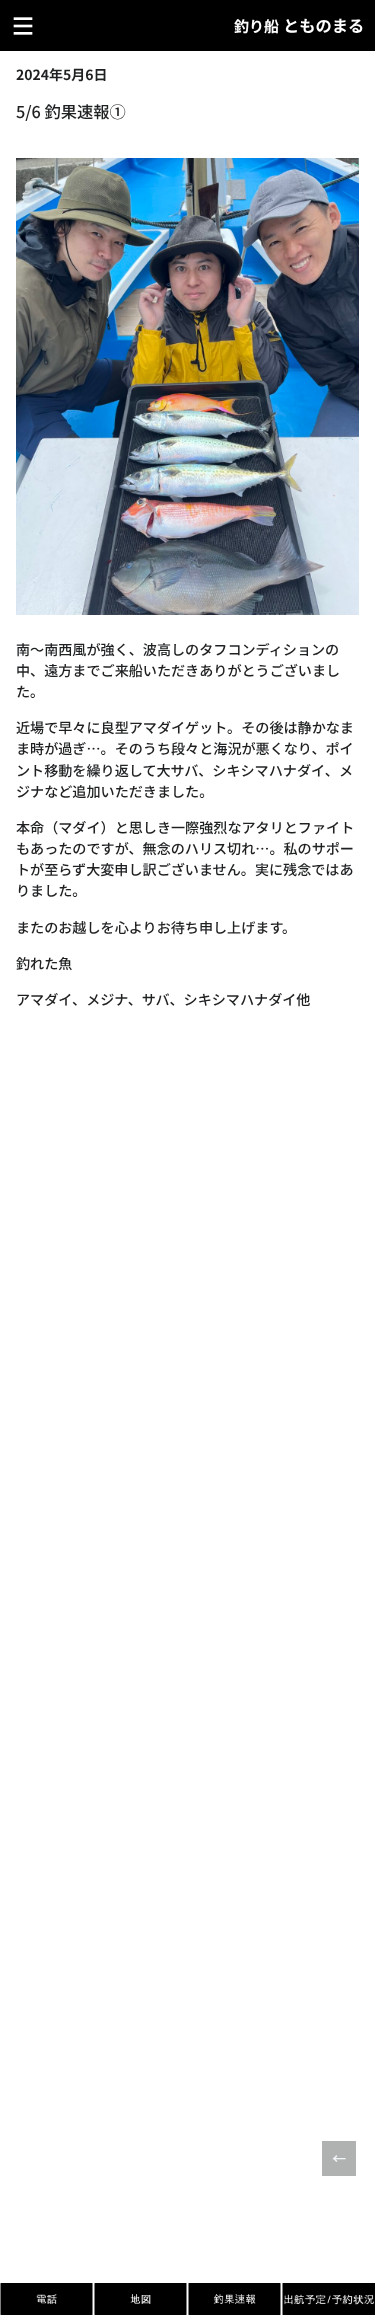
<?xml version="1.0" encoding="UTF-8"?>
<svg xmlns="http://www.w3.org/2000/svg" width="375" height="2315">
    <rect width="100%" height="100%" fill="#FFFFFF"/>
    <rect x="0" y="0" width="375" height="51" fill="#000000"/>
    <image x="13" y="17" width="20" height="18" href="img_01.png"/>
    <text x="234" y="32" font-family="Noto Sans JP" font-size="15" font-weight="700" fill="#FFFFFF">釣り船</text>
    <text x="283" y="32" font-family="Noto Sans JP" font-size="16.25" font-weight="700" fill="#FFFFFF">とものまる</text>
    <text x="16" y="80" font-family="Noto Sans JP" font-size="14" font-weight="700" fill="#1E2022">2024年5月6日</text>
    <text x="16" y="118" font-family="Noto Sans JP" font-size="16.25" font-weight="500" fill="#1E2022">5/6 釣果速報①</text>
    <image x="16" y="158" width="343" height="457" href="img_02.png"/>
    <text font-family="Noto Sans JP" font-size="14.1" font-weight="500" fill="#1E2022">
        <tspan x="16" y="655">南〜南西風が強く、波高しのタフコンディションの</tspan>
        <tspan x="16" y="676">中、遠方までご来船いただきありがとうございまし</tspan>
        <tspan x="16" y="697">た。</tspan>
    </text>
    <text font-family="Noto Sans JP" font-size="14.1" font-weight="500" fill="#1E2022">
        <tspan x="16" y="733">近場で早々に良型アマダイゲット。その後は静かなま</tspan>
        <tspan x="16" y="754">ま時が過ぎ…。そのうち段々と海況が悪くなり、ポイ</tspan>
        <tspan x="16" y="776">ント移動を繰り返して大サバ、シキシマハナダイ、メ</tspan>
        <tspan x="16" y="797">ジナなど追加いただきました。</tspan>
    </text>
    <text font-family="Noto Sans JP" font-size="14.1" font-weight="500" fill="#1E2022">
        <tspan x="16" y="833">本命（マダイ）と思しき一際強烈なアタリとファイト</tspan>
        <tspan x="16" y="854">もあったのですが、無念のハリス切れ…。私のサポー</tspan>
        <tspan x="16" y="875">トが至らず大変申し訳ございません。実に残念ではあ</tspan>
        <tspan x="16" y="896">りました。</tspan>
    </text>
    <text x="16" y="933" font-family="Noto Sans JP" font-size="14.1" font-weight="500" fill="#1E2022">またのお越しを心よりお待ち申し上げます。</text>
    <text x="16" y="969" font-family="Noto Sans JP" font-size="14.1" font-weight="500" fill="#1E2022">釣れた魚</text>
    <text x="16" y="1005" font-family="Noto Sans JP" font-size="14.1" font-weight="500" fill="#1E2022">アマダイ、メジナ、サバ、シキシマハナダイ他</text>
    <rect x="322" y="2141" width="34" height="35" fill="#B0B1B1"/>
    <text x="332" y="2164" font-family="Noto Sans JP" font-size="14.1" font-weight="700" fill="#F0F5F9">←</text>
    <image x="0" y="2283" width="93" height="32" href="img_03.png"/>
    <image x="94" y="2283" width="93" height="32" href="img_04.png"/>
    <image x="188" y="2283" width="93" height="32" href="img_05.png"/>
    <image x="282" y="2283" width="93" height="32" href="img_06.png"/>
</svg>
